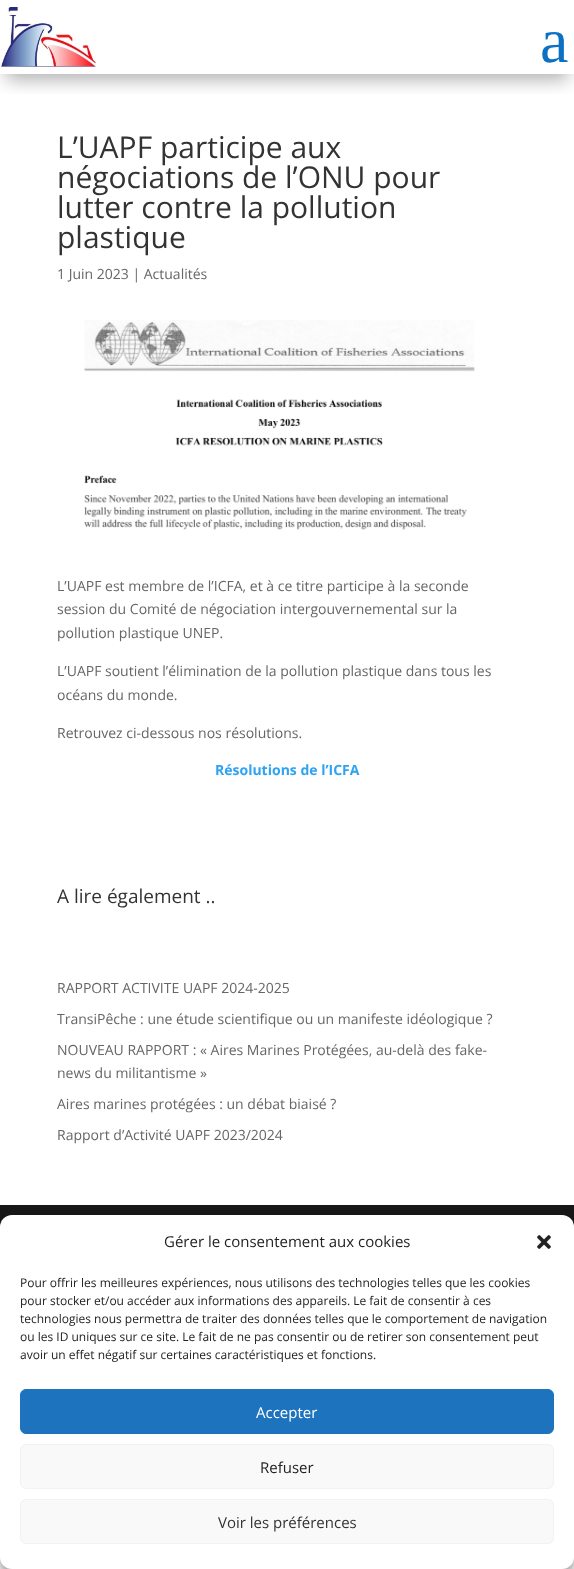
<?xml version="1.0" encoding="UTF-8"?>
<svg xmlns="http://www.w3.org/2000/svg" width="574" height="1569">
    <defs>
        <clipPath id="clip1"><rect x="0" y="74" width="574" height="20"/></clipPath>
        <filter id="blur1" x="-50%" y="-200%" width="200%" height="500%"><feGaussianBlur stdDeviation="9"/></filter>
        <filter id="blur2" x="-50%" y="-200%" width="200%" height="500%"><feGaussianBlur stdDeviation="3"/></filter>
        <filter id="blur3" x="-50%" y="-200%" width="200%" height="500%"><feGaussianBlur stdDeviation="10"/></filter>
    </defs>
    <rect width="100%" height="100%" fill="#FFFFFF"/>
    <g clip-path="url(#clip1)">
        <rect x="6" y="18" width="562" height="62" fill="#000000" fill-opacity="0.3" filter="url(#blur1)"/>
    </g>
    <image x="1" y="7" width="95" height="60" href="img_01.png"/>
    <text x="540" y="62" font-family="Liberation Serif" font-size="64" fill="#0C71C3">a</text>
    <text font-family="Open Sans" font-size="30" fill="#333333">
        <tspan x="57" y="158">L’UAPF participe aux</tspan>
        <tspan x="57" y="188">négociations de l’ONU pour</tspan>
        <tspan x="57" y="218">lutter contre la pollution</tspan>
        <tspan x="57" y="248">plastique</tspan>
    </text>
    <text x="57" y="279" font-family="Open Sans" font-size="14" fill="#666666">1 Juin 2023 | Actualités</text>
    <image x="84" y="320" width="391" height="210" href="img_02.png"/>
    <text font-family="Open Sans" font-size="14" fill="#666666">
        <tspan x="57" y="591">L’UAPF est membre de l’ICFA, et à ce titre participe à la seconde</tspan>
        <tspan x="57" y="614">session du Comité de négociation intergouvernemental sur la</tspan>
        <tspan x="57" y="638">pollution plastique UNEP.</tspan>
    </text>
    <text font-family="Open Sans" font-size="14" fill="#666666">
        <tspan x="57" y="676">L’UAPF soutient l’élimination de la pollution plastique dans tous les</tspan>
        <tspan x="57" y="700">océans du monde.</tspan>
    </text>
    <text x="57" y="738" font-family="Open Sans" font-size="14" fill="#666666">Retrouvez ci-dessous nos résolutions.</text>
    <text x="215" y="775" font-family="Open Sans" font-size="14" font-weight="700" fill="#2EA3F2">Résolutions de l’ICFA</text>
    <text x="57" y="903" font-family="Open Sans" font-size="19" fill="#333333">A lire également ..</text>
    <text x="57" y="993" font-family="Open Sans" font-size="14" fill="#666666">RAPPORT ACTIVITE UAPF 2024-2025</text>
    <text x="57" y="1024" font-family="Open Sans" font-size="14" fill="#666666">TransiPêche : une étude scientifique ou un manifeste idéologique ?</text>
    <text font-family="Open Sans" font-size="14" fill="#666666">
        <tspan x="57" y="1055">NOUVEAU RAPPORT : « Aires Marines Protégées, au-delà des fake-</tspan>
        <tspan x="57" y="1078">news du militantisme »</tspan>
    </text>
    <text x="57" y="1109" font-family="Open Sans" font-size="14" fill="#666666">Aires marines protégées : un débat biaisé ?</text>
    <text x="57" y="1140" font-family="Open Sans" font-size="14" fill="#666666">Rapport d’Activité UAPF 2023/2024</text>
    <rect x="0" y="1205" width="574" height="22" fill="#171717"/>
    <rect x="0" y="1221" width="574" height="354" rx="12" fill="#000000" fill-opacity="0.23" filter="url(#blur2)"/>
    <rect x="0" y="1225" width="574" height="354" rx="12" fill="#000000" fill-opacity="0.19" filter="url(#blur3)"/>
    <rect x="0" y="1215" width="574" height="354" rx="12" fill="#FFFFFF"/>
    <text x="164" y="1247" font-family="Open Sans" font-size="15" fill="#222222">Gérer le consentement aux cookies</text>
    <image x="537" y="1235" width="14" height="14" href="img_03.png"/>
    <text font-family="Open Sans" font-size="12" fill="#222222">
        <tspan x="20" y="1287">Pour offrir les meilleures expériences, nous utilisons des technologies telles que les cookies</tspan>
        <tspan x="20" y="1305">pour stocker et/ou accéder aux informations des appareils. Le fait de consentir à ces</tspan>
        <tspan x="20" y="1323">technologies nous permettra de traiter des données telles que le comportement de navigation</tspan>
        <tspan x="20" y="1341">ou les ID uniques sur ce site. Le fait de ne pas consentir ou de retirer son consentement peut</tspan>
        <tspan x="20" y="1359">avoir un effet négatif sur certaines caractéristiques et fonctions.</tspan>
    </text>
    <rect x="20.5" y="1389.5" width="533" height="44" rx="5.5" fill="#1E73BE" stroke="#1E73BE"/>
    <text x="256" y="1418" font-family="Open Sans" font-size="15" fill="#FFFFFF">Accepter</text>
    <rect x="20.5" y="1444.5" width="533" height="44" rx="5.5" fill="#F9F9F9" stroke="#F2F2F2"/>
    <text x="260" y="1473" font-family="Open Sans" font-size="15" fill="#222222">Refuser</text>
    <rect x="20.5" y="1499.5" width="533" height="44" rx="5.5" fill="#F9F9F9" stroke="#F2F2F2"/>
    <text x="218" y="1528" font-family="Open Sans" font-size="15" fill="#333333">Voir les préférences</text>
</svg>
